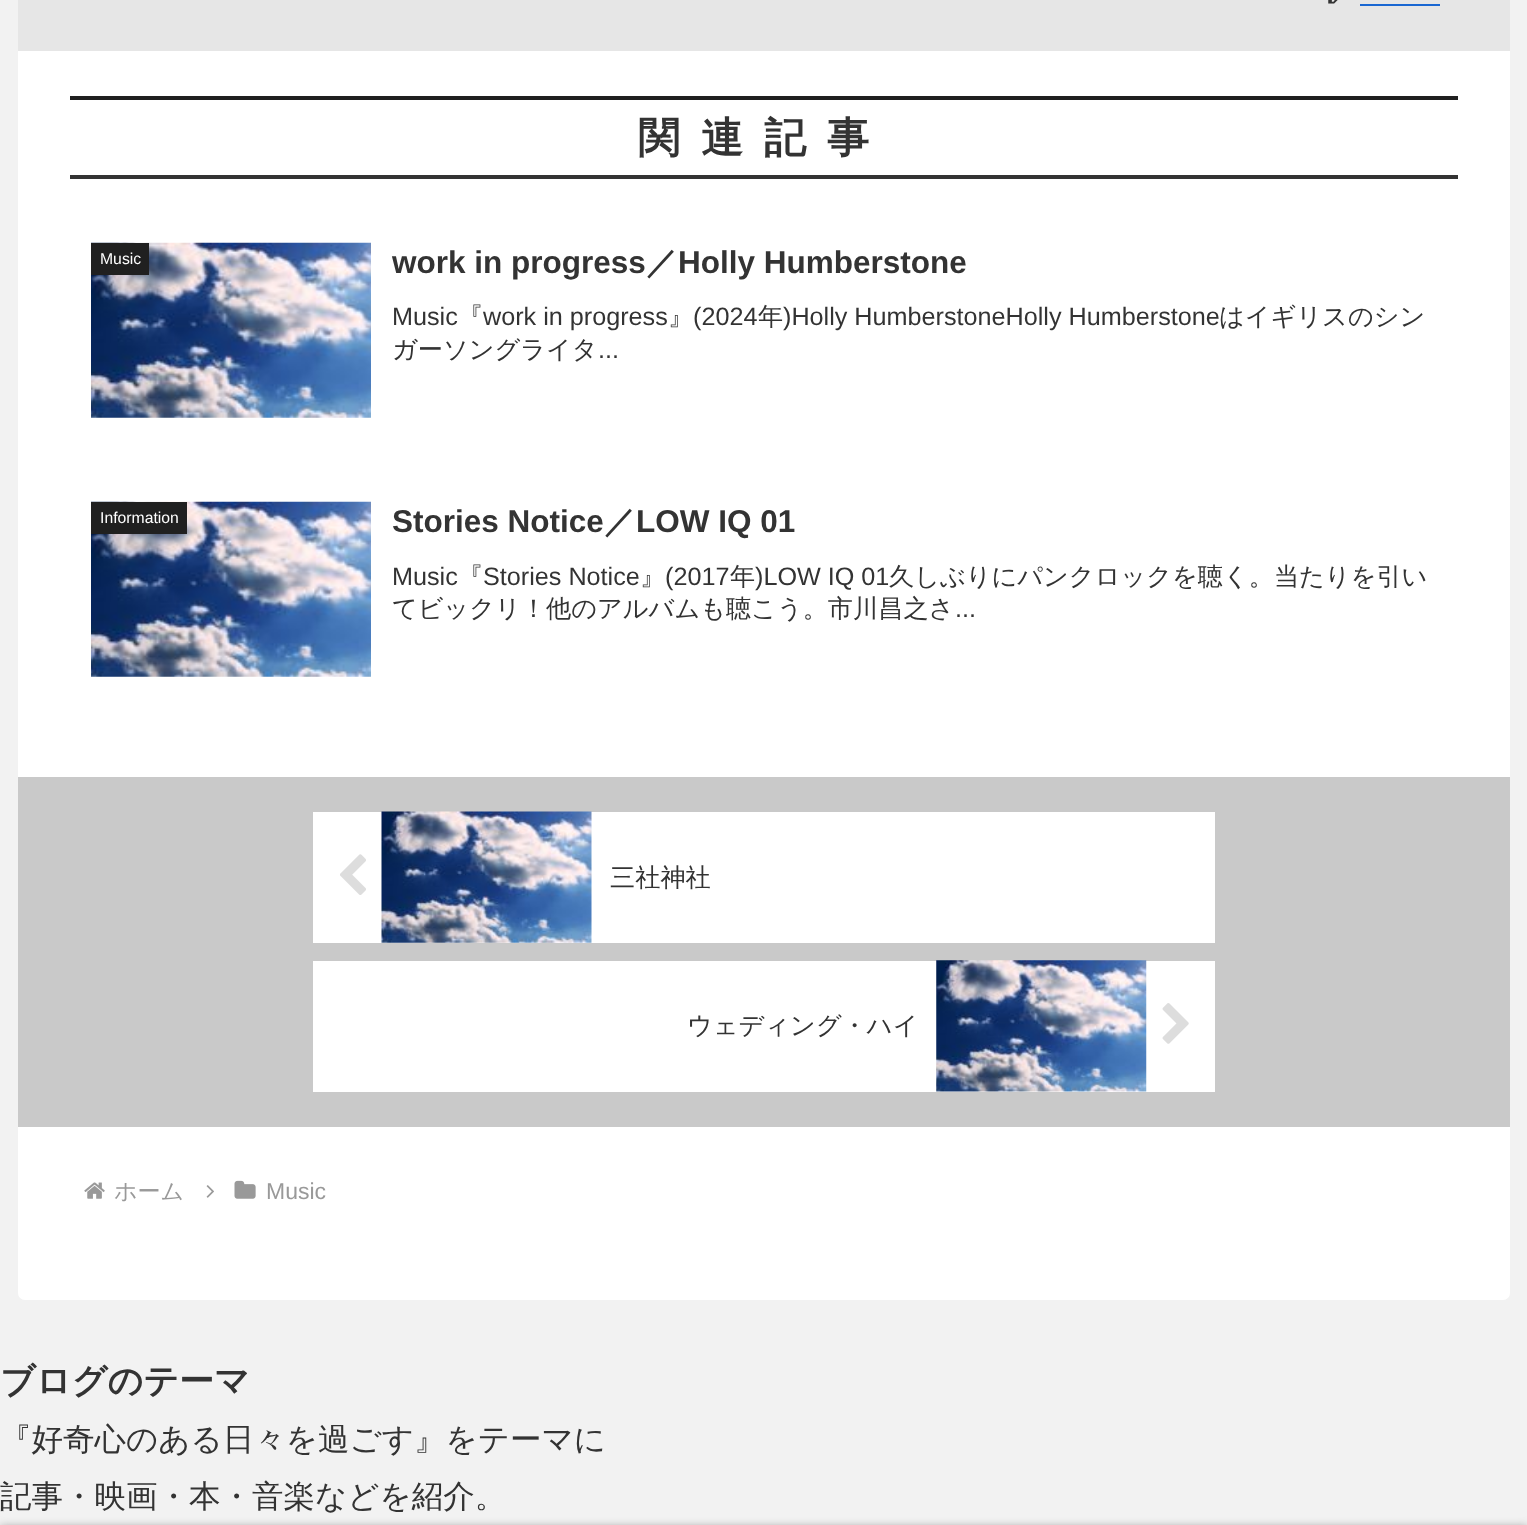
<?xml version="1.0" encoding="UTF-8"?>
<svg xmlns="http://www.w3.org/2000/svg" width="1527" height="1525">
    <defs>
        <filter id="blur1" x="-50%" y="-200%" width="200%" height="500%"><feGaussianBlur stdDeviation="4.5"/></filter>
    </defs>
    <rect width="100%" height="100%" fill="#F2F2F2"/>
    <rect x="18" y="-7" width="1492" height="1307" rx="7" fill="#FFFFFF"/>
    <rect x="18" y="0" width="1492" height="51" fill="#E6E6E6"/>
    <image x="1328" y="0" width="10" height="4" href="img_01.png"/>
    <rect x="1360" y="4" width="80" height="2" fill="#1967D2"/>
    <rect x="70" y="96" width="1388" height="4" fill="#202020"/>
    <rect x="70" y="175" width="1388" height="4" fill="#333333"/>
    <text x="638" y="152" font-family="WenQuanYi Zen Hei" font-size="42" font-weight="700" letter-spacing="21" fill="#333333">関連記事</text>
    <image x="91" y="242" width="280" height="176" href="img_02.png"/>
    <rect x="91" y="243" width="58" height="32" fill="#202020"/>
    <text x="100" y="264" font-family="Liberation Sans" font-size="15.75" fill="#FFFFFF">Music</text>
    <text x="392" y="273" font-family="Liberation Sans" font-size="31.5" font-weight="700" fill="#333333">work in progress</text>
    <text x="646" y="273" font-family="WenQuanYi Zen Hei" font-size="31.5" font-weight="700" fill="#333333">／</text>
    <text x="678" y="273" font-family="Liberation Sans" font-size="31.5" font-weight="700" fill="#333333">Holly Humberstone</text>
    <text x="392" y="325" font-family="Liberation Sans" font-size="25.2" fill="#333333">Music</text>
    <text x="458" y="325" font-family="WenQuanYi Zen Hei" font-size="25.2" font-weight="500" fill="#333333">『</text>
    <text x="483" y="325" font-family="Liberation Sans" font-size="25.2" fill="#333333">work in progress</text>
    <text x="668" y="325" font-family="WenQuanYi Zen Hei" font-size="25.2" font-weight="500" fill="#333333">』</text>
    <text x="693" y="325" font-family="Liberation Sans" font-size="25.2" fill="#333333">(2024</text>
    <text x="758" y="325" font-family="WenQuanYi Zen Hei" font-size="25.2" font-weight="500" fill="#333333">年</text>
    <text x="783" y="325" font-family="Liberation Sans" font-size="25.2" fill="#333333">)Holly HumberstoneHolly Humberstone</text>
    <text x="1219" y="325" font-family="WenQuanYi Zen Hei" font-size="25.2" font-weight="500" fill="#333333">はイギリスのシン</text>
    <text x="392" y="358" font-family="WenQuanYi Zen Hei" font-size="25.2" font-weight="500" fill="#333333">ガーソングライタ</text>
    <text x="598" y="358" font-family="Liberation Sans" font-size="25.2" fill="#333333">...</text>
    <image x="91" y="501" width="280" height="176" href="img_02.png"/>
    <rect x="91" y="502" width="96" height="32" fill="#202020"/>
    <text x="100" y="523" font-family="Liberation Sans" font-size="15.75" fill="#FFFFFF">Information</text>
    <text x="392" y="532" font-family="Liberation Sans" font-size="31.5" font-weight="700" fill="#333333">Stories Notice</text>
    <text x="604" y="532" font-family="WenQuanYi Zen Hei" font-size="31.5" font-weight="700" fill="#333333">／</text>
    <text x="636" y="532" font-family="Liberation Sans" font-size="31.5" font-weight="700" fill="#333333">LOW IQ 01</text>
    <text x="392" y="585" font-family="Liberation Sans" font-size="25.2" fill="#333333">Music</text>
    <text x="458" y="585" font-family="WenQuanYi Zen Hei" font-size="25.2" font-weight="500" fill="#333333">『</text>
    <text x="483" y="585" font-family="Liberation Sans" font-size="25.2" fill="#333333">Stories Notice</text>
    <text x="640" y="585" font-family="WenQuanYi Zen Hei" font-size="25.2" font-weight="500" fill="#333333">』</text>
    <text x="665" y="585" font-family="Liberation Sans" font-size="25.2" fill="#333333">(2017</text>
    <text x="730" y="585" font-family="WenQuanYi Zen Hei" font-size="25.2" font-weight="500" fill="#333333">年</text>
    <text x="755" y="585" font-family="Liberation Sans" font-size="25.2" fill="#333333">)LOW IQ 01</text>
    <text x="889" y="585" font-family="WenQuanYi Zen Hei" font-size="25.2" font-weight="500" fill="#333333">久しぶりにパンクロックを聴く。当たりを引い</text>
    <text x="392" y="617" font-family="WenQuanYi Zen Hei" font-size="25.2" font-weight="500" fill="#333333">てビックリ！他のアルバムも聴こう。市川昌之さ</text>
    <text x="955" y="617" font-family="Liberation Sans" font-size="25.2" fill="#333333">...</text>
    <rect x="18" y="777" width="1492" height="350" fill="#C9C9C9"/>
    <rect x="313" y="812" width="902" height="131" fill="#FFFFFF"/>
    <image x="340" y="854" width="26" height="41" href="img_03.png"/>
    <image x="381" y="811" width="211" height="132" href="img_04.png"/>
    <text x="610" y="886" font-family="WenQuanYi Zen Hei" font-size="25.2" font-weight="500" fill="#333333">三社神社</text>
    <rect x="313" y="961" width="902" height="131" fill="#FFFFFF"/>
    <text x="687" y="1034" font-family="WenQuanYi Zen Hei" font-size="25.2" font-weight="500" fill="#333333">ウェディング・ハイ</text>
    <image x="936" y="960" width="211" height="132" href="img_05.png"/>
    <image x="1162" y="1003" width="27" height="41" href="img_06.png"/>
    <image x="84" y="1182" width="21" height="17" href="img_07.png"/>
    <text x="114" y="1199" font-family="WenQuanYi Zen Hei" font-size="23" font-weight="500" fill="#999999">ホーム</text>
    <image x="206" y="1185" width="8" height="13" href="img_08.png"/>
    <image x="234" y="1180" width="22" height="19" href="img_09.png"/>
    <text x="266" y="1199" font-family="Liberation Sans" font-size="23" fill="#999999">Music</text>
    <text x="0" y="1393" font-family="WenQuanYi Zen Hei" font-size="35" font-weight="700" fill="#333333">ブログのテーマ</text>
    <text font-family="WenQuanYi Zen Hei" font-size="31.5" font-weight="500" fill="#333333">
        <tspan x="0" y="1450">『好奇心のある日々を過ごす』をテーマに</tspan>
        <tspan x="0" y="1507">記事・映画・本・音楽などを紹介。</tspan>
    </text>
    <rect x="0" y="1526" width="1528" height="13" fill="#A9A9A9" filter="url(#blur1)"/>
</svg>
